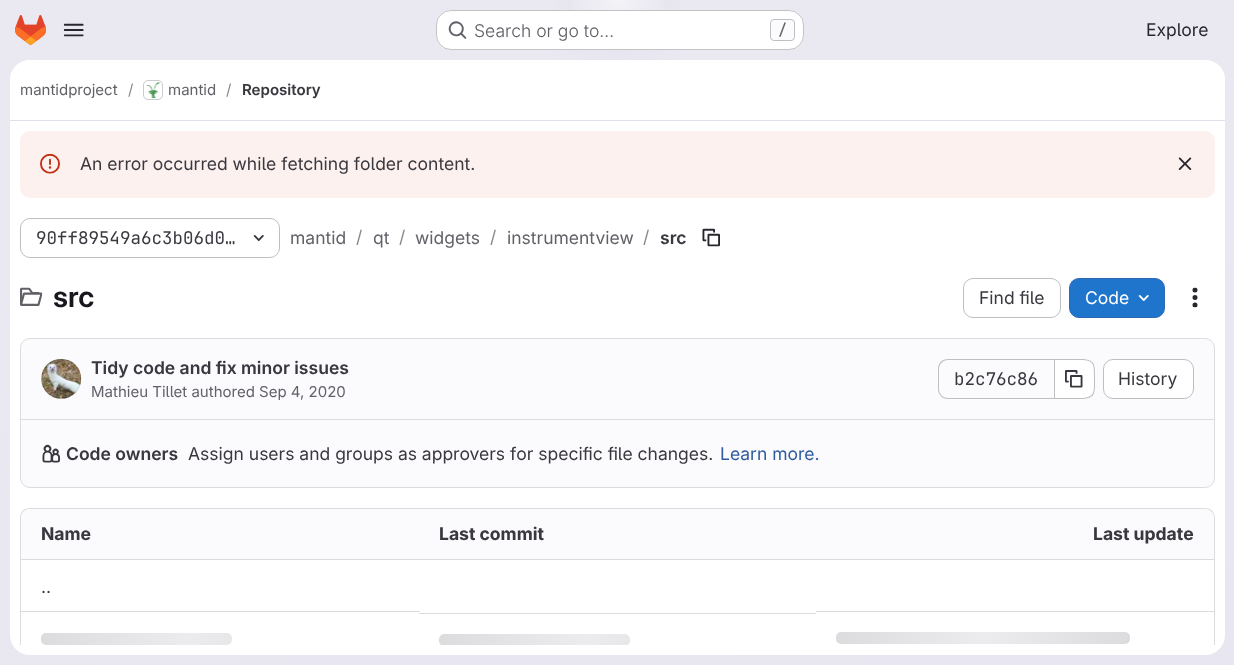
<?xml version="1.0" encoding="UTF-8"?>
<svg xmlns="http://www.w3.org/2000/svg" width="1234" height="665">
    <defs>
        <linearGradient id="g1" gradientUnits="userSpaceOnUse" x1="693" y1="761" x2="542" y2="-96"><stop offset="0" stop-color="#E8E6F0"/><stop offset="0.7" stop-color="#EAE9F2"/></linearGradient>
        <radialGradient id="g2" gradientUnits="userSpaceOnUse" cx="0" cy="0" r="1" gradientTransform="matrix(618 0 0 665 618 0)"><stop offset="0" stop-color="#E4E2ED"/><stop offset="0.14" stop-color="#E4E2ED" stop-opacity="0"/></radialGradient>
        <radialGradient id="g3" gradientUnits="userSpaceOnUse" cx="0" cy="0" r="1" gradientTransform="matrix(618 0 0 665 618 0)"><stop offset="0" stop-color="#E4E2EC"/><stop offset="0.1" stop-color="#E4E2EC" stop-opacity="0"/></radialGradient>
        <radialGradient id="g4" gradientUnits="userSpaceOnUse" cx="618" cy="0" r="907"><stop offset="0" stop-color="#FFFFFF" stop-opacity="0.6"/><stop offset="0.06" stop-color="#FFFFFF" stop-opacity="0"/></radialGradient>
        <clipPath id="clip1"><rect x="10" y="121" width="1215" height="524"/></clipPath>
        <linearGradient id="g5" gradientUnits="userSpaceOnUse" x1="41" y1="633" x2="335" y2="633"><stop offset="0" stop-color="#DCDCDE"/><stop offset="0.5" stop-color="#ECECEF"/><stop offset="1" stop-color="#DCDCDE"/></linearGradient>
        <clipPath id="clip2"><rect x="439" y="634" width="191" height="12" rx="5"/></clipPath>
        <linearGradient id="g6" gradientUnits="userSpaceOnUse" x1="439" y1="634" x2="733" y2="634"><stop offset="0" stop-color="#DCDCDE"/><stop offset="0.5" stop-color="#ECECEF"/><stop offset="1" stop-color="#DCDCDE"/></linearGradient>
        <linearGradient id="g7" gradientUnits="userSpaceOnUse" x1="836" y1="632" x2="1130" y2="632"><stop offset="0" stop-color="#DCDCDE"/><stop offset="0.5" stop-color="#ECECEF"/><stop offset="1" stop-color="#DCDCDE"/></linearGradient>
    </defs>
    <rect width="100%" height="100%" fill="#FFFFFF"/>
    <rect x="0" y="0" width="1234" height="665" fill="url(#g1)"/>
    <rect x="556" y="0" width="124" height="60" fill="url(#g2)"/>
    <rect x="595" y="1" width="46" height="12" fill="url(#g3)"/>
    <rect x="572" y="0" width="92" height="46" fill="url(#g4)"/>
    <image x="15" y="15" width="31" height="30" href="img_01.png"/>
    <image x="63" y="23" width="21" height="14" href="img_02.png"/>
    <rect x="436" y="10" width="368" height="40" rx="15" fill="#FFFFFF"/>
    <rect x="436.5" y="10.5" width="367" height="39" rx="14.5" fill="none" stroke="#050506" stroke-opacity="0.24"/>
    <image x="448" y="21" width="19" height="18" href="img_03.png"/>
    <text x="474" y="37" font-family="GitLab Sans" font-size="17.5" font-weight="300" fill="#626168">Search or go to…</text>
    <rect x="770.5" y="19.5" width="24" height="21" rx="3.5" fill="#FBFAFD" stroke="#BFBFC3"/>
    <text x="778" y="35" font-family="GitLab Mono" font-size="15" font-weight="500" fill="#626168">/</text>
    <text x="1146" y="36" font-family="GitLab Sans" font-size="17.5" fill="#28272D">Explore</text>
    <rect x="10" y="60" width="1215" height="595" rx="20" fill="#FFFFFF"/>
    <path d="M 30 60 H 1205 C 1216 60 1225 69 1225 80 V 121 H 10 V 80 C 10 69 19 60 30 60 Z" fill="#FFFFFF"/>
    <rect x="10" y="120" width="1215" height="1" fill="#E1DFEC"/>
    <text x="20" y="95" font-family="GitLab Sans" font-size="15" fill="#626168">mantidproject</text>
    <text x="128" y="95" font-family="GitLab Sans" font-size="15" fill="#89888D">/</text>
    <rect x="143.5" y="80.5" width="19" height="19" rx="4.5" fill="none" stroke="#DCDCDE"/>
    <image x="146" y="82" width="14" height="16" href="img_04.png"/>
    <rect x="143.5" y="80.5" width="19" height="19" rx="4.5" fill="none" stroke="#050506" stroke-opacity="0.08"/>
    <text x="168" y="95" font-family="GitLab Sans" font-size="15" fill="#626168">mantid</text>
    <text x="226" y="95" font-family="GitLab Sans" font-size="15" fill="#89888D">/</text>
    <text x="242" y="95" font-family="GitLab Sans" font-size="15" font-weight="600" fill="#3A383F">Repository</text>
    <rect x="20" y="131" width="1195" height="67" rx="10" fill="#FCF1EF"/>
    <image x="40" y="153" width="20" height="21" href="img_05.png"/>
    <text x="80" y="170" font-family="GitLab Sans" font-size="17.5" fill="#3A383F">An error occurred while fetching folder content.</text>
    <image x="1178" y="157" width="14" height="13" href="img_06.png"/>
    <rect x="20.5" y="218.5" width="259" height="39" rx="9.5" fill="none" stroke="#BFBFC3"/>
    <text x="36" y="244" font-family="GitLab Mono" font-size="17.5" fill="#3A383F">90ff89549a6c3b06d0…</text>
    <image x="253" y="235" width="11" height="6" href="img_07.png"/>
    <text x="290" y="244" font-family="GitLab Sans" font-size="17.5" fill="#626168">mantid</text>
    <text x="356" y="243" font-family="GitLab Sans" font-size="17.5" fill="#89888D">/</text>
    <text x="373" y="244" font-family="GitLab Sans" font-size="17.5" fill="#626168">qt</text>
    <text x="399" y="243" font-family="GitLab Sans" font-size="17.5" fill="#89888D">/</text>
    <text x="415" y="244" font-family="GitLab Sans" font-size="17.5" fill="#626168">widgets</text>
    <text x="490" y="243" font-family="GitLab Sans" font-size="17.5" fill="#89888D">/</text>
    <text x="507" y="244" font-family="GitLab Sans" font-size="17.5" fill="#626168">instrumentview</text>
    <text x="643" y="243" font-family="GitLab Sans" font-size="17.5" fill="#89888D">/</text>
    <text x="660" y="244" font-family="GitLab Sans" font-size="17.5" font-weight="600" fill="#3A383F">src</text>
    <image x="702" y="228" width="18" height="19" href="img_08.png"/>
    <image x="20" y="287" width="23" height="19" href="img_09.png"/>
    <text x="53" y="307" font-family="'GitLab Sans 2'" font-size="29" font-weight="600" fill="#18171D">src</text>
    <rect x="963.5" y="278.5" width="97" height="39" rx="9.5" fill="none" stroke="#BFBFC3"/>
    <text x="979" y="304" font-family="GitLab Sans" font-size="17.5" fill="#3A383F">Find file</text>
    <rect x="1069.5" y="278.5" width="95" height="39" rx="9.5" fill="#1F75CB" stroke="#2F68B4"/>
    <text x="1085" y="304" font-family="GitLab Sans" font-size="17.5" fill="#FFFFFF">Code</text>
    <image x="1138" y="295" width="11" height="6" href="img_10.png"/>
    <image x="1192" y="287" width="6" height="21" href="img_11.png"/>
    <rect x="20.5" y="338.5" width="1194" height="149" rx="9.5" fill="#FBFAFD" stroke="#DCDCDE"/>
    <image x="41" y="358" width="41" height="41" href="img_12.png"/>
    <circle cx="61" cy="379" r="19.5" fill="none" stroke="#050506" stroke-opacity="0.08"/>
    <text x="91" y="374" font-family="GitLab Sans" font-size="17.5" font-weight="600" fill="#3A383F">Tidy code and fix minor issues</text>
    <text x="91" y="397" font-family="GitLab Sans" font-size="15" fill="#626168">Mathieu Tillet authored Sep 4, 2020</text>
    <path d="M 948 359 H 1054 V 399 H 948 C 942 399 938 394 938 389 V 369 C 938 363 942 359 948 359 Z M 948 360 H 1054 V 398 H 948 C 943 398 939 394 939 389 V 369 C 939 364 943 360 948 360 Z" fill="#BFBFC3" fill-rule="evenodd"/>
    <text x="954" y="385" font-family="GitLab Mono" font-size="17.5" fill="#3A383F">b2c76c86</text>
    <path d="M 1055 360 H 1085 C 1090 360 1094 364 1094 369 V 389 C 1094 394 1090 398 1085 398 H 1055 Z" fill="#FFFFFF"/>
    <path d="M 1055 359 H 1080 C 1096 359 1095 365 1095 379 C 1095 393 1096 399 1080 399 H 1055 Z M 1055 360 H 1080 C 1095 360 1094 365 1094 379 C 1094 392 1095 398 1080 398 H 1055 Z" fill="#BFBFC3" fill-rule="evenodd"/>
    <rect x="1054" y="359" width="1" height="40" fill="#BFBFC3"/>
    <image x="1065" y="370" width="18" height="18" href="img_13.png"/>
    <rect x="1103.5" y="359.5" width="90" height="39" rx="9.5" fill="#FFFFFF" stroke="#BFBFC3"/>
    <text x="1118" y="385" font-family="GitLab Sans" font-size="17.5" fill="#3A383F">History</text>
    <rect x="21" y="419" width="1193" height="1" fill="#DCDCDE"/>
    <image x="42" y="444" width="18" height="19" href="img_14.png"/>
    <text x="66" y="460" font-family="GitLab Sans" font-size="17.5" font-weight="600" fill="#3A383F">Code owners</text>
    <text x="188" y="460" font-family="GitLab Sans" font-size="17.5" fill="#3A383F">Assign users and groups as approvers for specific file changes.</text>
    <text x="720" y="460" font-family="GitLab Sans" font-size="17.5" fill="#2F5CA0">Learn more.</text>
    <g clip-path="url(#clip1)">
        <path d="M 30 508 C 24 508 20 512 20 518 V 652 L 21 653 V 518 C 21 513 25 509 30 509 H 1205 C 1210 509 1214 513 1214 518 V 653 L 1215 652 V 518 C 1215 512 1211 508 1205 508 Z" fill="#DCDCDE"/>
    </g>
    <path d="M 30 509 H 419 V 560 H 21 V 518 C 21 513 25 509 30 509 Z" fill="#FBFAFD"/>
    <text x="41" y="540" font-family="GitLab Sans" font-size="17.5" font-weight="700" fill="#3A383F">Name</text>
    <rect x="419" y="509" width="397" height="50" fill="#FBFAFD"/>
    <text x="439" y="540" font-family="GitLab Sans" font-size="17.5" font-weight="700" fill="#3A383F">Last commit</text>
    <path d="M 816 509 H 1205 C 1210 509 1214 513 1214 518 V 560 H 816 Z" fill="#FBFAFD"/>
    <text x="1093" y="540" font-family="GitLab Sans" font-size="17.5" font-weight="700" fill="#3A383F">Last update</text>
    <rect x="21" y="559" width="1193" height="1" fill="#DCDCDE"/>
    <text x="41" y="593" font-family="GitLab Sans" font-size="17.5" fill="#3A383F">..</text>
    <rect x="21" y="611" width="399" height="1" fill="#DCDCDE"/>
    <rect x="41" y="633" width="191" height="12" rx="5" fill="url(#g5)"/>
    <rect x="419" y="613" width="397" height="1" fill="#DCDCDE"/>
    <g clip-path="url(#clip2)">
        <path d="M 444 634 H 625 C 628 634 630 636 630 639 V 645 H 439 V 639 C 439 636 441 634 444 634 Z" fill="url(#g6)"/>
    </g>
    <rect x="816" y="611" width="398" height="1" fill="#DCDCDE"/>
    <rect x="836" y="632" width="294" height="12" rx="5" fill="url(#g7)"/>
</svg>
